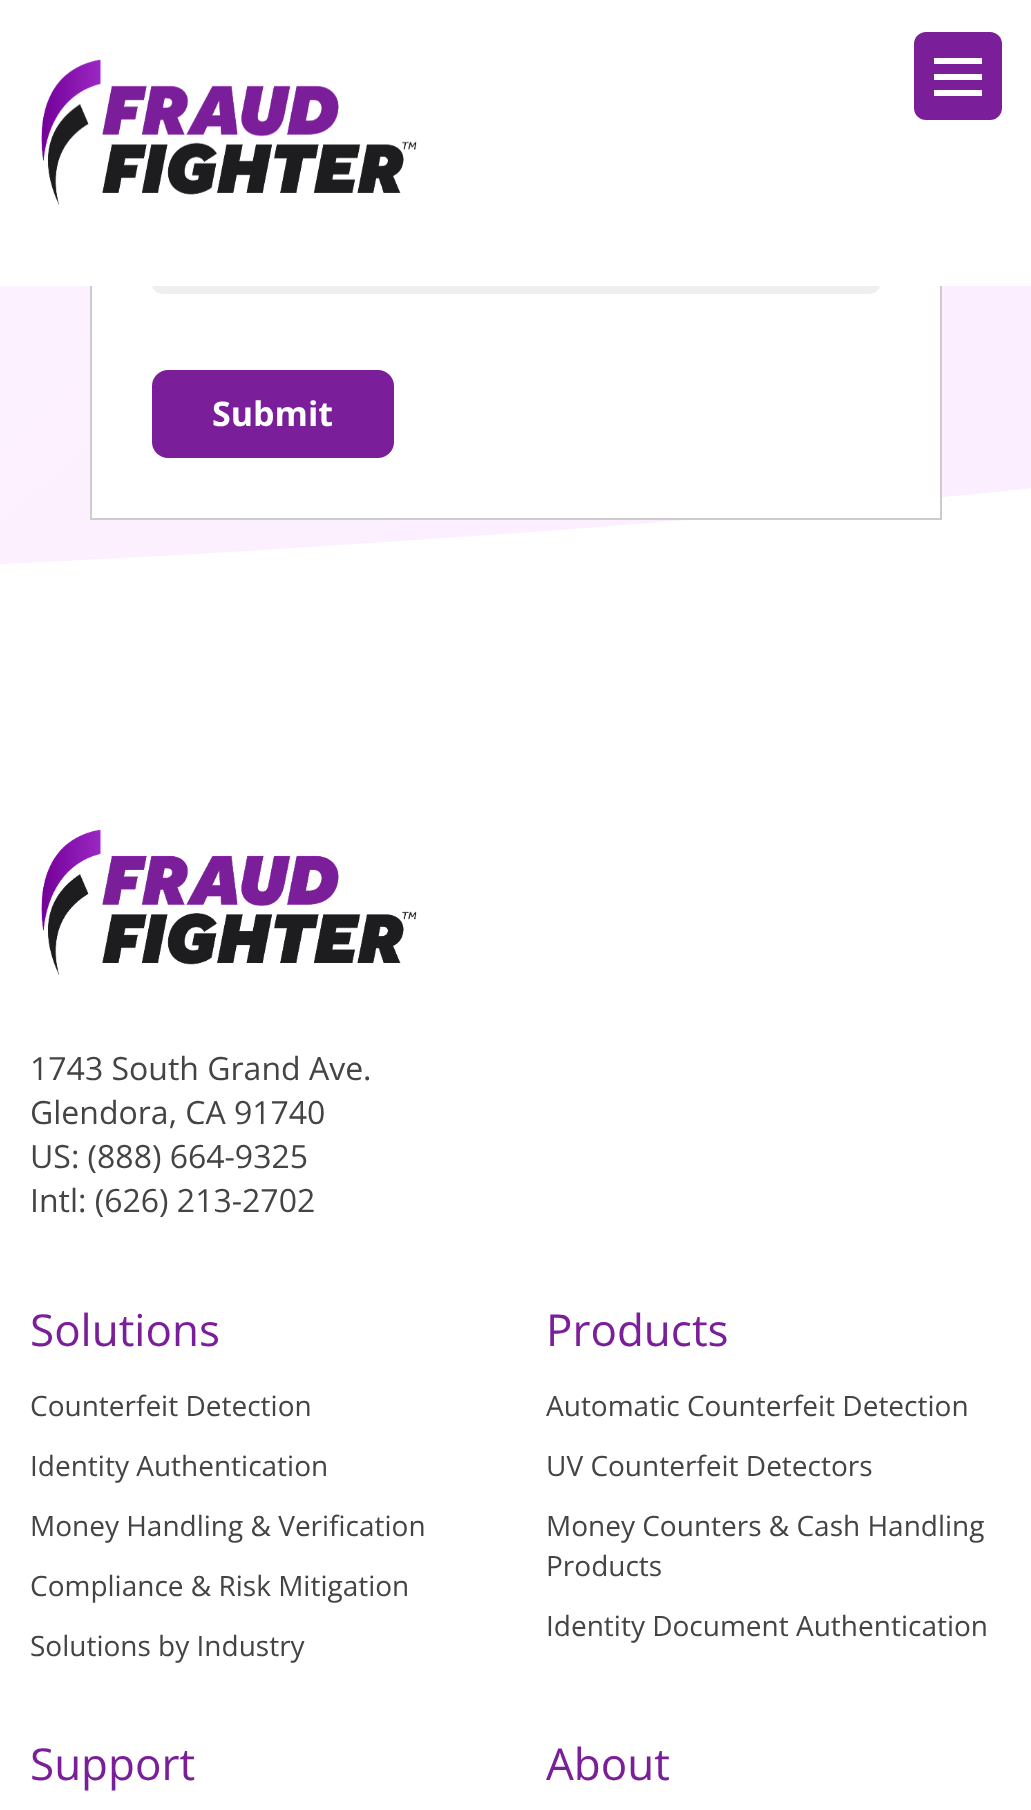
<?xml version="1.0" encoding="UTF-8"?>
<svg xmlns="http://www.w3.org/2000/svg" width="1031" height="1810">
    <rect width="100%" height="100%" fill="#FFFFFF"/>
    <image x="0" y="286" width="1031" height="278" href="img_02.png"/>
    <rect x="92" y="286" width="848" height="232" fill="#FFFFFF"/>
    <rect x="91" y="-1" width="850" height="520" fill="none" stroke="#CCCCCC" stroke-width="2"/>
    <rect x="153" y="-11" width="726" height="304" rx="9" fill="#EFEFEF" stroke="#EFEFEF" stroke-width="2"/>
    <rect x="90" y="0" width="852" height="286" fill="#FFFFFF"/>
    <image x="41" y="59" width="376" height="146" href="img_01.png"/>
    <rect x="914" y="32" width="88" height="88" rx="12" fill="#7A1E99"/>
    <rect x="934" y="74" width="48" height="6" fill="#FFFFFF"/>
    <rect x="934" y="58" width="48" height="6" fill="#FFFFFF"/>
    <rect x="934" y="90" width="48" height="6" fill="#FFFFFF"/>
    <rect x="152" y="370" width="242" height="88" rx="16" fill="#7A1E99"/>
    <text x="212" y="426" font-family="Open Sans" font-size="34" font-weight="700" fill="#FFFFFF">Submit</text>
    <image x="41" y="829" width="376" height="146" href="img_03.png"/>
    <text font-family="Open Sans" font-size="32" fill="#444444">
        <tspan x="30" y="1080">1743 South Grand Ave.</tspan>
        <tspan x="30" y="1124">Glendora, CA 91740</tspan>
        <tspan x="30" y="1168">US: (888) 664-9325</tspan>
        <tspan x="30" y="1212">Intl: (626) 213-2702</tspan>
    </text>
    <text x="30" y="1346" font-family="Open Sans" font-size="44" fill="#7A1E99">Solutions</text>
    <text x="30" y="1416" font-family="Open Sans" font-size="28" fill="#444444">Counterfeit Detection</text>
    <text x="30" y="1476" font-family="Open Sans" font-size="28" fill="#444444">Identity Authentication</text>
    <text x="30" y="1536" font-family="Open Sans" font-size="28" fill="#444444">Money Handling &amp; Verification</text>
    <text x="30" y="1596" font-family="Open Sans" font-size="28" fill="#444444">Compliance &amp; Risk Mitigation</text>
    <text x="30" y="1656" font-family="Open Sans" font-size="28" fill="#444444">Solutions by Industry</text>
    <text x="546" y="1346" font-family="Open Sans" font-size="44" fill="#7A1E99">Products</text>
    <text x="546" y="1416" font-family="Open Sans" font-size="28" fill="#444444">Automatic Counterfeit Detection</text>
    <text x="546" y="1476" font-family="Open Sans" font-size="28" fill="#444444">UV Counterfeit Detectors</text>
    <text font-family="Open Sans" font-size="28" fill="#444444">
        <tspan x="546" y="1536">Money Counters &amp; Cash Handling</tspan>
        <tspan x="546" y="1576">Products</tspan>
    </text>
    <text x="546" y="1636" font-family="Open Sans" font-size="28" fill="#444444">Identity Document Authentication</text>
    <text x="30" y="1780" font-family="Open Sans" font-size="44" fill="#7A1E99">Support</text>
    <text x="546" y="1780" font-family="Open Sans" font-size="44" fill="#7A1E99">About</text>
</svg>
